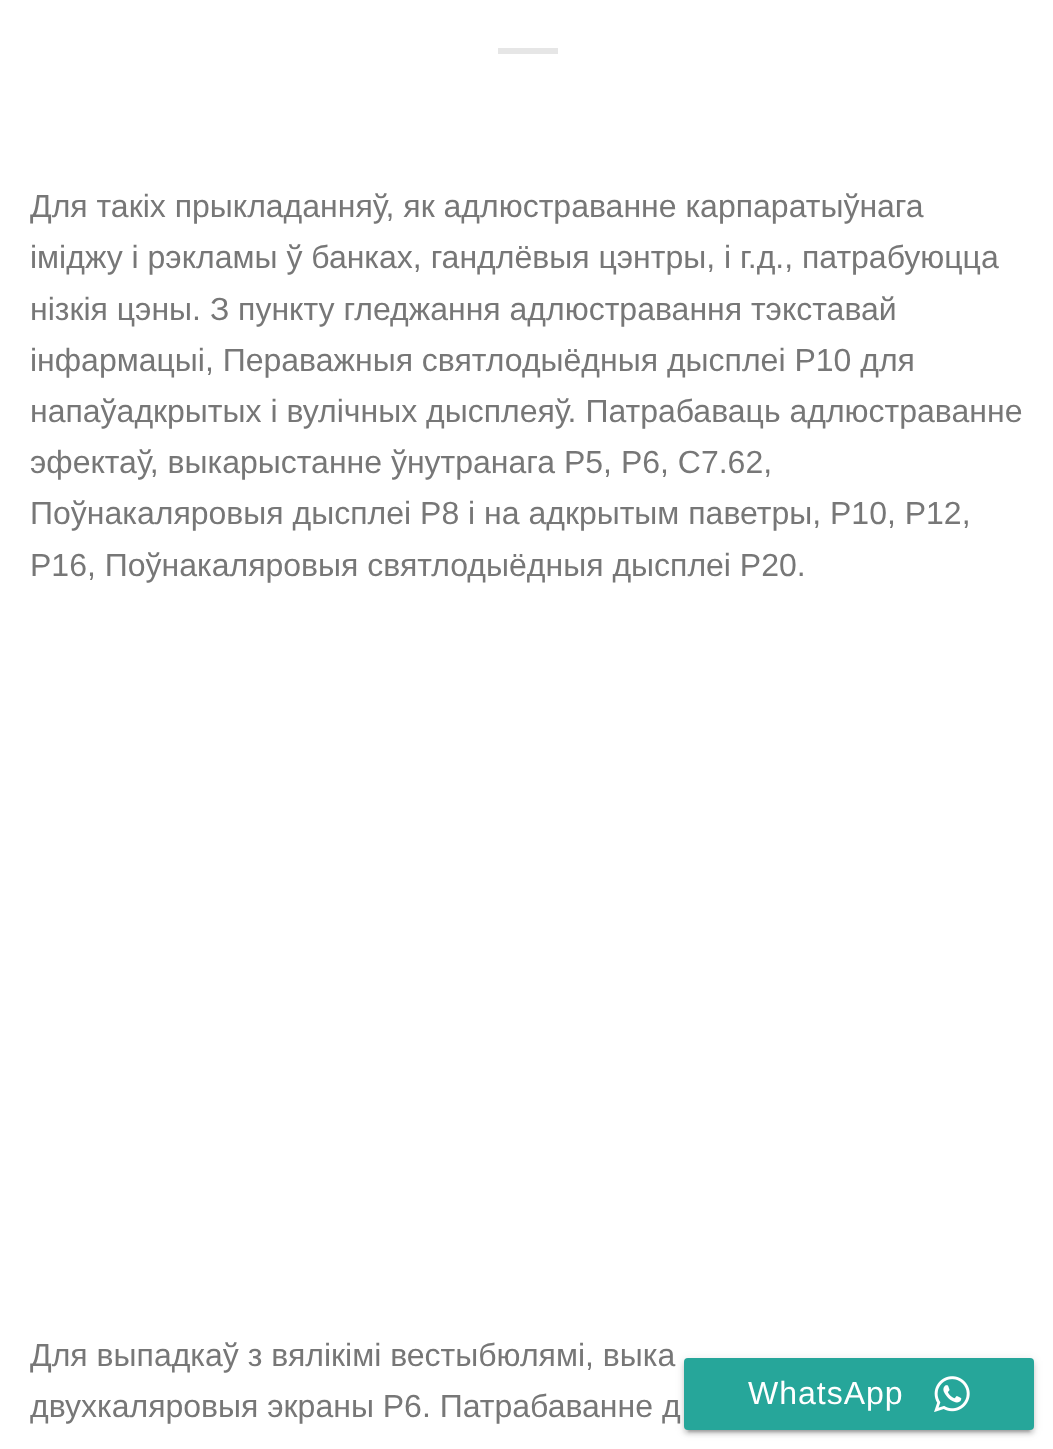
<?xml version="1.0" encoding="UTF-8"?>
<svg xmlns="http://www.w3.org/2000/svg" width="1053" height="1449">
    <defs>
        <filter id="blur1" x="-50%" y="-200%" width="200%" height="500%"><feGaussianBlur stdDeviation="1"/></filter>
        <filter id="blur2" x="-50%" y="-200%" width="200%" height="500%"><feGaussianBlur stdDeviation="5"/></filter>
        <filter id="blur3" x="-50%" y="-200%" width="200%" height="500%"><feGaussianBlur stdDeviation="2"/></filter>
    </defs>
    <rect width="100%" height="100%" fill="#FFFFFF"/>
    <rect x="498" y="48" width="60" height="6" fill="#E6E6E6"/>
    <text font-family="Liberation Sans" font-size="32" fill="#777777">
        <tspan x="30" y="217">Для такіх прыкладанняў, як адлюстраванне карпаратыўнага</tspan>
        <tspan x="30" y="268">іміджу і рэкламы ў банках, гандлёвыя цэнтры, і г.д., патрабуюцца</tspan>
        <tspan x="30" y="320">нізкія цэны. З пункту гледжання адлюстравання тэкставай</tspan>
        <tspan x="30" y="371">інфармацыі, Пераважныя святлодыёдныя дысплеі P10 для</tspan>
        <tspan x="30" y="422">напаўадкрытых і вулічных дысплеяў. Патрабаваць адлюстраванне</tspan>
        <tspan x="30" y="473">эфектаў, выкарыстанне ўнутранага P5, Р6, С7.62,</tspan>
        <tspan x="30" y="524">Поўнакаляровыя дысплеі P8 і на адкрытым паветры, Р10, P12,</tspan>
        <tspan x="30" y="576">Р16, Поўнакаляровыя святлодыёдныя дысплеі P20.</tspan>
    </text>
    <text font-family="Liberation Sans" font-size="32" fill="#777777">
        <tspan x="30" y="1366">Для выпадкаў з вялікімі вестыбюлямі, выка</tspan>
        <tspan x="30" y="1417">двухкаляровыя экраны P6. Патрабаванне д</tspan>
    </text>
    <rect x="688" y="1368" width="342" height="64" fill="#000000" fill-opacity="0.2" filter="url(#blur1)"/>
    <rect x="684" y="1360" width="350" height="72" rx="4" fill="#000000" fill-opacity="0.12" filter="url(#blur2)"/>
    <rect x="684" y="1362" width="350" height="72" rx="4" fill="#000000" fill-opacity="0.14" filter="url(#blur3)"/>
    <rect x="684" y="1358" width="350" height="72" rx="4" fill="#26A69A"/>
    <text x="748" y="1404" font-family="Liberation Sans" font-size="32" letter-spacing="1" fill="#FFFFFF">WhatsApp</text>
    <image x="934" y="1376" width="36" height="36" href="img_01.png"/>
</svg>
